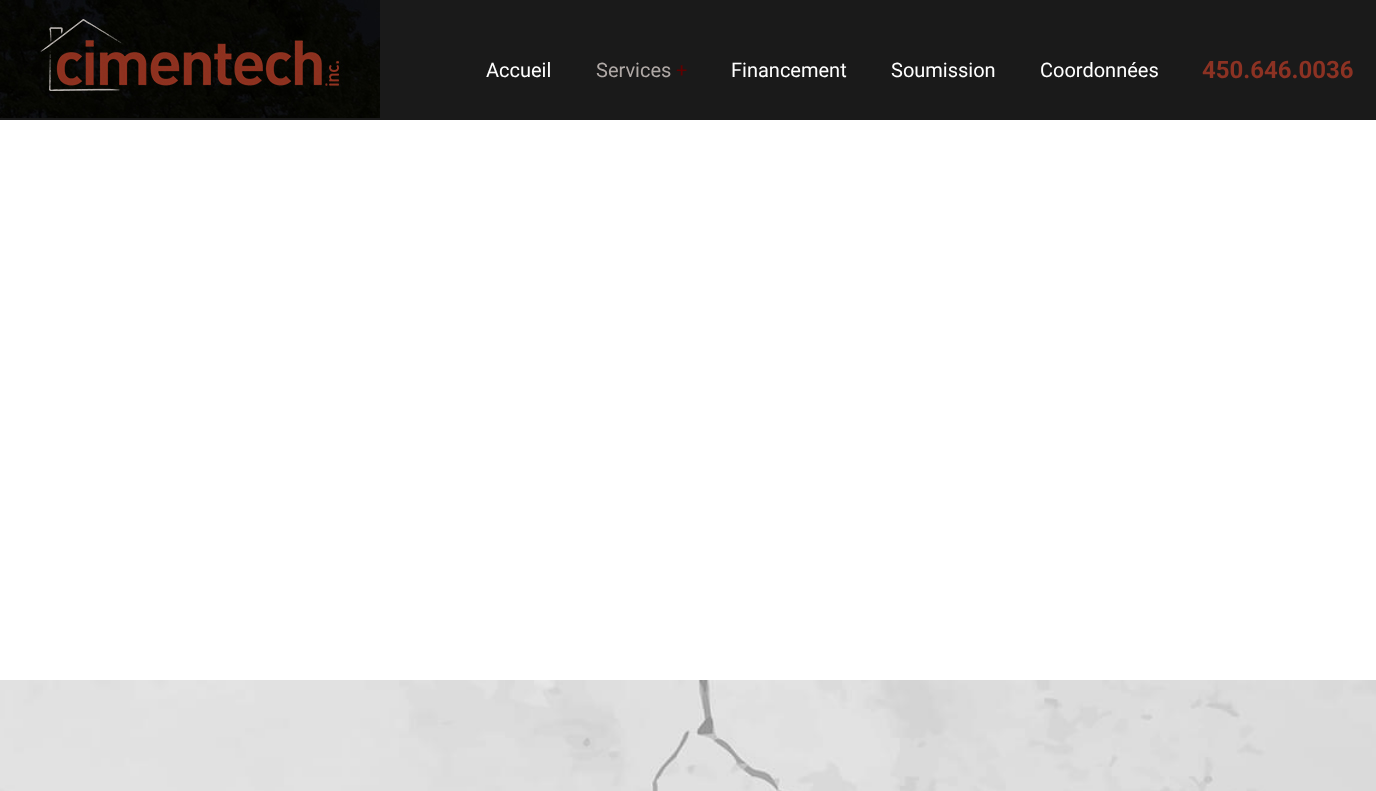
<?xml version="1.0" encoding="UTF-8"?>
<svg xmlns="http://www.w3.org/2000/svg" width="1376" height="791">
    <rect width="100%" height="100%" fill="#FFFFFF"/>
    <rect x="0" y="0" width="1376" height="120" fill="#1A1A1A"/>
    <image x="0" y="0" width="380" height="118" href="img_01.png"/>
    <text x="486" y="77" font-family="Roboto" font-size="20" fill="#FFFFFF">Accueil</text>
    <text x="596" y="77" font-family="Roboto" font-size="20" fill="#B0A9A6">Services</text>
    <text x="676" y="77" font-family="Roboto" font-size="20" fill="#600000">+</text>
    <text x="731" y="77" font-family="Roboto" font-size="20" fill="#FFFFFF">Financement</text>
    <text x="891" y="77" font-family="Roboto" font-size="20" fill="#FFFFFF">Soumission</text>
    <text x="1040" y="77" font-family="Roboto" font-size="20" fill="#FFFFFF">Coordonnées</text>
    <text x="1202" y="78" font-family="Roboto" font-size="24" font-weight="700" fill="#8C3223">450.646.0036</text>
    <image x="0" y="680" width="1376" height="111" href="img_02.png"/>
</svg>
